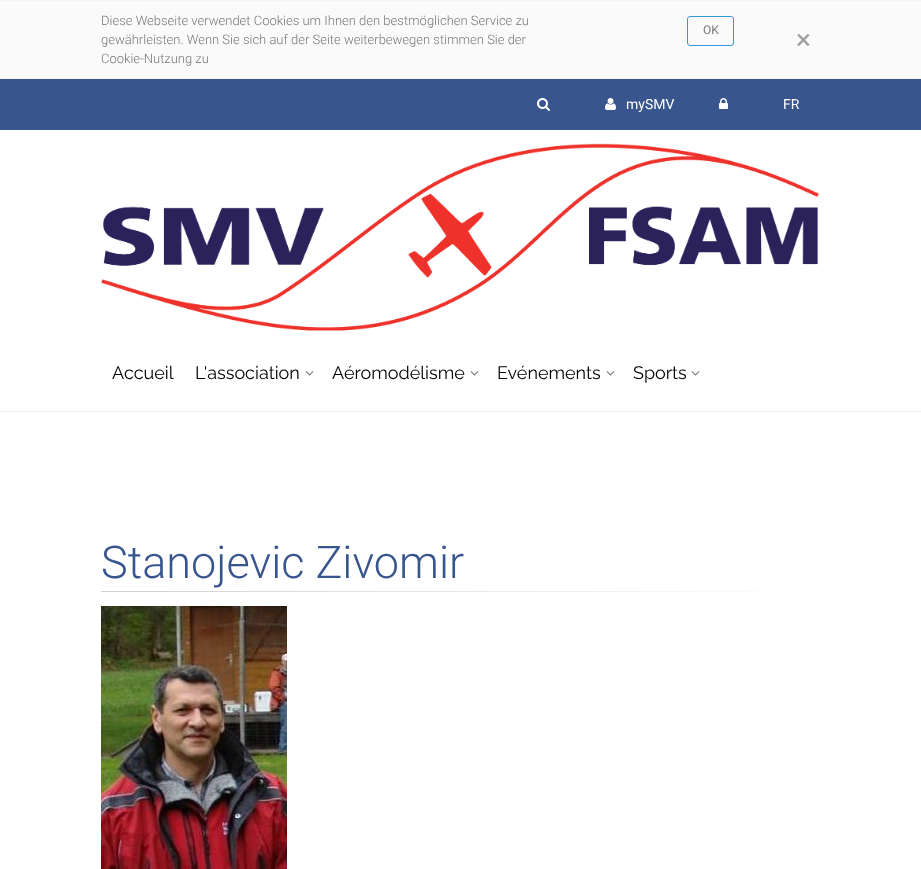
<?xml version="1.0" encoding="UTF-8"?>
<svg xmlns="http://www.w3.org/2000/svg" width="921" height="869">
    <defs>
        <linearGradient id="g1" gradientUnits="userSpaceOnUse" x1="101" y1="592" x2="821" y2="592"><stop offset="0" stop-color="#D1D1D1"/><stop offset="0.35" stop-color="#E0E0E0"/><stop offset="0.7" stop-color="#F2F2F2"/><stop offset="1" stop-color="#FFFFFF"/></linearGradient>
    </defs>
    <rect width="100%" height="100%" fill="#FFFFFF"/>
    <rect x="0" y="1" width="921" height="77" fill="#FAFAFA"/>
    <rect x="0" y="0" width="921" height="1" fill="#F3F3F3"/>
    <rect x="0" y="78" width="921" height="1" fill="#F3F3F3"/>
    <text font-family="Roboto" font-size="13" font-weight="300" fill="#777777">
        <tspan x="101" y="25">Diese Webseite verwendet Cookies um Ihnen den bestmöglichen Service zu</tspan>
        <tspan x="101" y="44">gewährleisten. Wenn Sie sich auf der Seite weiterbewegen stimmen Sie der</tspan>
        <tspan x="101" y="63">Cookie-Nutzung zu</tspan>
    </text>
    <rect x="687.5" y="16.5" width="46" height="29" rx="2.5" fill="none" stroke="#3697D9"/>
    <text x="703" y="34" font-family="Roboto" font-size="12" fill="#777777">OK</text>
    <text x="796" y="49" font-family="Roboto" font-size="28" fill="#9E9E9E">×</text>
    <rect x="0" y="79" width="921" height="51" fill="#39558E"/>
    <image x="537" y="98" width="13" height="13" href="img_01.png"/>
    <image x="605" y="98" width="11" height="12" href="img_02.png"/>
    <text x="626" y="109" font-family="Roboto" font-size="14" fill="#FFFFFF">mySMV</text>
    <image x="719" y="98" width="9" height="11" href="img_03.png"/>
    <text x="783" y="109" font-family="Roboto" font-size="14" fill="#FFFFFF">FR</text>
    <rect x="0" y="411" width="921" height="1" fill="#EDEDED"/>
    <image x="101" y="143" width="719" height="188" href="img_04.png"/>
    <text x="112" y="379" font-family="Raleway" font-size="18" fill="#000000">Accueil</text>
    <text x="195" y="379" font-family="Raleway" font-size="18" fill="#000000">L'association</text>
    <image x="305" y="371" width="9" height="5" href="img_05.png"/>
    <text x="332" y="379" font-family="Raleway" font-size="18" fill="#000000">Aéromodélisme</text>
    <image x="470" y="371" width="9" height="5" href="img_05.png"/>
    <text x="497" y="379" font-family="Raleway" font-size="18" fill="#000000">Evénements</text>
    <image x="606" y="371" width="9" height="5" href="img_05.png"/>
    <text x="633" y="379" font-family="Raleway" font-size="18" fill="#000000">Sports</text>
    <image x="691" y="371" width="9" height="5" href="img_05.png"/>
    <text x="101" y="578" font-family="Roboto" font-size="45" font-weight="300" fill="#39558E">Stanojevic Zivomir</text>
    <rect x="101" y="591" width="678" height="1" fill="url(#g1)"/>
    <image x="101" y="606" width="186" height="263" href="img_06.png"/>
</svg>
